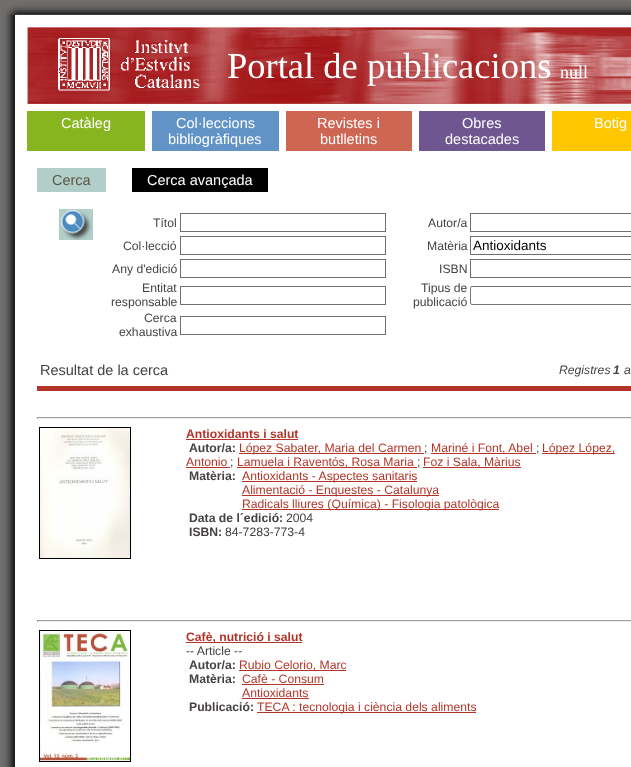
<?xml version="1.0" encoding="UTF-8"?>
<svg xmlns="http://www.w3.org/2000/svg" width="631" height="767">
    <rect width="100%" height="100%" fill="#FFFFFF"/>
    <image x="0" y="0" width="15" height="767" href="img_01.png"/>
    <image x="4" y="0" width="627" height="15" href="img_02.png"/>
    <image x="27" y="27" width="604" height="77" href="img_03.png"/>
    <text x="227" y="78" font-family="Liberation Serif" font-size="36.5" fill="#FFFFFF">Portal de publicacions</text>
    <text x="560" y="78" font-family="Liberation Serif" font-size="18" fill="#FFFFFF">null</text>
    <rect x="27" y="111" width="118" height="40" fill="#87B51F"/>
    <text x="61" y="128" font-family="Liberation Sans" font-size="14.5" fill="#FFFFFF">Catàleg</text>
    <rect x="152" y="111" width="127" height="40" fill="#6193C6"/>
    <text x="176" y="128" font-family="Liberation Sans" font-size="14.5" fill="#FFFFFF">Col·leccions</text>
    <text x="168" y="144" font-family="Liberation Sans" font-size="14.5" fill="#FFFFFF">bibliogràfiques</text>
    <rect x="286" y="111" width="126" height="40" fill="#CE6654"/>
    <text x="317" y="128" font-family="Liberation Sans" font-size="14.5" fill="#FFFFFF">Revistes i</text>
    <text x="320" y="144" font-family="Liberation Sans" font-size="14.5" fill="#FFFFFF">butlletins</text>
    <rect x="419" y="111" width="126" height="40" fill="#6F5691"/>
    <text x="462" y="128" font-family="Liberation Sans" font-size="14.5" fill="#FFFFFF">Obres</text>
    <text x="445" y="144" font-family="Liberation Sans" font-size="14.5" fill="#FFFFFF">destacades</text>
    <rect x="552" y="111" width="79" height="40" fill="#FFC700"/>
    <text x="594" y="128" font-family="Liberation Sans" font-size="14.5" fill="#FFFFFF">Botig</text>
    <rect x="37" y="168" width="69" height="24" fill="#B2CEC9"/>
    <text x="52" y="185" font-family="Liberation Sans" font-size="14.5" fill="#5A5747">Cerca</text>
    <rect x="132" y="168" width="136" height="24" fill="#000000"/>
    <text x="147" y="185" font-family="Liberation Sans" font-size="14.5" fill="#FFFFFF">Cerca avançada</text>
    <image x="59" y="209" width="34" height="31" href="img_04.png"/>
    <text x="153" y="227" font-family="Liberation Sans" font-size="12.2" fill="#464241">Títol</text>
    <rect x="180.5" y="213.5" width="205" height="18" fill="none" stroke="#716F6E"/>
    <text x="428" y="227" font-family="Liberation Sans" font-size="12.2" fill="#464241">Autor/a</text>
    <rect x="470.5" y="213.5" width="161" height="18" fill="none" stroke="#716F6E"/>
    <text x="123" y="250" font-family="Liberation Sans" font-size="12.2" fill="#464241">Col·lecció</text>
    <rect x="180.5" y="236.5" width="205" height="18" fill="none" stroke="#716F6E"/>
    <text x="427" y="250" font-family="Liberation Sans" font-size="12.2" fill="#464241">Matèria</text>
    <rect x="470.5" y="236.5" width="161" height="18" fill="none" stroke="#716F6E"/>
    <text x="473" y="250" font-family="Liberation Sans" font-size="13.5" fill="#000000">Antioxidants</text>
    <text x="112" y="273" font-family="Liberation Sans" font-size="12.2" fill="#464241">Any d'edició</text>
    <rect x="180.5" y="259.5" width="205" height="18" fill="none" stroke="#716F6E"/>
    <text x="439" y="273" font-family="Liberation Sans" font-size="12.2" fill="#464241">ISBN</text>
    <rect x="470.5" y="259.5" width="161" height="18" fill="none" stroke="#716F6E"/>
    <text x="142" y="292" font-family="Liberation Sans" font-size="12.2" fill="#464241">Entitat</text>
    <text x="111" y="306" font-family="Liberation Sans" font-size="12.2" fill="#464241">responsable</text>
    <rect x="180.5" y="286.5" width="205" height="18" fill="none" stroke="#716F6E"/>
    <text x="421" y="292" font-family="Liberation Sans" font-size="12.2" fill="#464241">Tipus de</text>
    <text x="413" y="306" font-family="Liberation Sans" font-size="12.2" fill="#464241">publicació</text>
    <rect x="470.5" y="286.5" width="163" height="18" rx="1.5" fill="none" stroke="#767676"/>
    <text x="144" y="322" font-family="Liberation Sans" font-size="12.2" fill="#464241">Cerca</text>
    <text x="119" y="336" font-family="Liberation Sans" font-size="12.2" fill="#464241">exhaustiva</text>
    <rect x="180.5" y="316.5" width="205" height="18" fill="none" stroke="#716F6E"/>
    <text x="40" y="375" font-family="Liberation Sans" font-size="14.5" fill="#464241">Resultat de la cerca</text>
    <text x="559" y="374" font-family="Liberation Sans" font-size="12.2" font-style="italic" fill="#464241">Registres</text>
    <text x="613" y="374" font-family="Liberation Sans" font-size="12.2" font-weight="700" font-style="italic" fill="#464241">1</text>
    <text x="624" y="374" font-family="Liberation Sans" font-size="12.2" font-style="italic" fill="#464241">a</text>
    <rect x="37" y="386" width="594" height="5" fill="#B33529"/>
    <rect x="37" y="417" width="594" height="1" fill="#9F9F9F"/>
    <rect x="37" y="418" width="594" height="1" fill="#EEEEEE"/>
    <rect x="37" y="417" width="1" height="2" fill="#9F9F9F"/>
    <rect x="39.5" y="427.5" width="91" height="131" fill="none" stroke="#000000"/>
    <image x="40" y="428" width="90" height="130" href="img_05.png"/>
    <text x="186" y="438" font-family="Liberation Sans" font-size="12.2" font-weight="700" fill="#B33529">Antioxidants i salut</text>
    <rect x="186" y="439" width="112" height="1" fill="#B33529"/>
    <text x="189" y="452" font-family="Liberation Sans" font-size="12.2" font-weight="700" fill="#464241">Autor/a:</text>
    <rect x="239" y="453" width="185" height="1" fill="#B33529"/>
    <text x="239" y="452" font-family="Liberation Sans" font-size="12.2" fill="#B33529">López Sabater, Maria del Carmen</text>
    <text x="424" y="452" font-family="Liberation Sans" font-size="12.2" fill="#464241">;</text>
    <rect x="431" y="453" width="105" height="1" fill="#B33529"/>
    <text x="431" y="452" font-family="Liberation Sans" font-size="12.2" fill="#B33529">Mariné i Font, Abel</text>
    <text x="536" y="452" font-family="Liberation Sans" font-size="12.2" fill="#464241">;</text>
    <rect x="542" y="453" width="73" height="1" fill="#B33529"/>
    <text x="542" y="452" font-family="Liberation Sans" font-size="12.2" fill="#B33529">López López,</text>
    <text x="186" y="466" font-family="Liberation Sans" font-size="12.2" fill="#B33529">Antonio</text>
    <rect x="186" y="467" width="44" height="1" fill="#B33529"/>
    <text x="230" y="466" font-family="Liberation Sans" font-size="12.2" fill="#464241">;</text>
    <rect x="237" y="467" width="180" height="1" fill="#B33529"/>
    <text x="237" y="466" font-family="Liberation Sans" font-size="12.2" fill="#B33529">Lamuela i Raventós, Rosa Maria</text>
    <text x="417" y="466" font-family="Liberation Sans" font-size="12.2" fill="#464241">;</text>
    <rect x="423" y="467" width="98" height="1" fill="#B33529"/>
    <text x="423" y="466" font-family="Liberation Sans" font-size="12.2" fill="#B33529">Foz i Sala, Màrius</text>
    <text x="189" y="480" font-family="Liberation Sans" font-size="12.2" font-weight="700" fill="#464241">Matèria:</text>
    <rect x="242" y="481" width="175" height="1" fill="#B33529"/>
    <text x="242" y="480" font-family="Liberation Sans" font-size="12.2" fill="#B33529">Antioxidants - Aspectes sanitaris</text>
    <rect x="242" y="495" width="197" height="1" fill="#B33529"/>
    <text x="242" y="494" font-family="Liberation Sans" font-size="12.2" fill="#B33529">Alimentació - Enquestes - Catalunya</text>
    <rect x="242" y="509" width="257" height="1" fill="#B33529"/>
    <text x="242" y="508" font-family="Liberation Sans" font-size="12.2" fill="#B33529">Radicals lliures (Química) - Fisologia patològica</text>
    <text x="189" y="522" font-family="Liberation Sans" font-size="12.2" font-weight="700" fill="#464241">Data de l´edició:</text>
    <text x="286" y="522" font-family="Liberation Sans" font-size="12.2" fill="#464241">2004</text>
    <text x="189" y="536" font-family="Liberation Sans" font-size="12.2" font-weight="700" fill="#464241">ISBN:</text>
    <text x="225" y="536" font-family="Liberation Sans" font-size="12.2" fill="#464241">84-7283-773-4</text>
    <rect x="37" y="620" width="594" height="1" fill="#9F9F9F"/>
    <rect x="37" y="621" width="594" height="1" fill="#EEEEEE"/>
    <rect x="37" y="620" width="1" height="2" fill="#9F9F9F"/>
    <rect x="39.5" y="630.5" width="91" height="131" fill="none" stroke="#000000"/>
    <image x="40" y="631" width="90" height="130" href="img_06.png"/>
    <rect x="186" y="642" width="116" height="1" fill="#B33529"/>
    <text x="186" y="641" font-family="Liberation Sans" font-size="12.2" font-weight="700" fill="#B33529">Cafè, nutrició i salut</text>
    <text x="186" y="655" font-family="Liberation Sans" font-size="12.2" fill="#464241">-- Article --</text>
    <text x="189" y="669" font-family="Liberation Sans" font-size="12.2" font-weight="700" fill="#464241">Autor/a:</text>
    <rect x="239" y="670" width="107" height="1" fill="#B33529"/>
    <text x="239" y="669" font-family="Liberation Sans" font-size="12.2" fill="#B33529">Rubio Celorio, Marc</text>
    <text x="189" y="683" font-family="Liberation Sans" font-size="12.2" font-weight="700" fill="#464241">Matèria:</text>
    <text x="242" y="683" font-family="Liberation Sans" font-size="12.2" fill="#B33529">Cafè - Consum</text>
    <rect x="242" y="684" width="82" height="1" fill="#B33529"/>
    <text x="242" y="697" font-family="Liberation Sans" font-size="12.2" fill="#B33529">Antioxidants</text>
    <rect x="242" y="698" width="67" height="1" fill="#B33529"/>
    <text x="189" y="711" font-family="Liberation Sans" font-size="12.2" font-weight="700" fill="#464241">Publicació:</text>
    <rect x="257" y="712" width="219" height="1" fill="#B33529"/>
    <text x="257" y="711" font-family="Liberation Sans" font-size="12.2" fill="#B33529">TECA : tecnologia i ciència dels aliments</text>
</svg>
